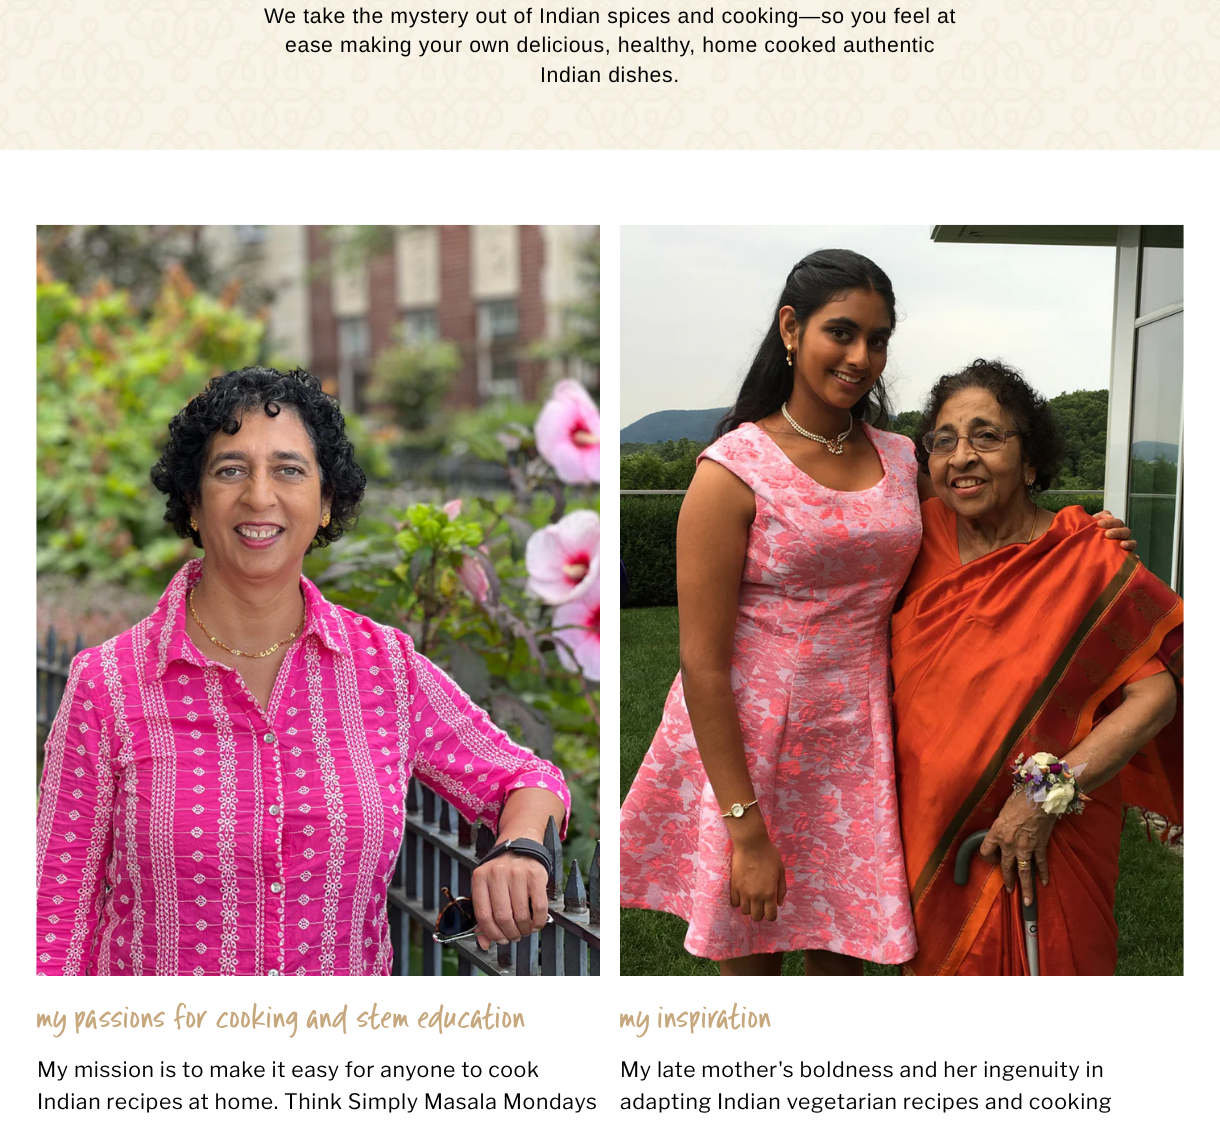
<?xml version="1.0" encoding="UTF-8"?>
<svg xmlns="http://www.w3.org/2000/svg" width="1220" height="1124">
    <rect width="100%" height="100%" fill="#FFFFFF"/>
    <image x="0" y="0" width="1220" height="150" href="img_01.png"/>
    <text x="264" y="23" font-family="Liberation Sans" font-size="21.25" letter-spacing="0.62" fill="#000000">We take the mystery out of Indian spices and cooking—so you feel at</text>
    <text x="285" y="52" font-family="Liberation Sans" font-size="21.25" letter-spacing="0.62" fill="#000000">ease making your own delicious, healthy, home cooked authentic</text>
    <text x="540" y="82" font-family="Liberation Sans" font-size="21.25" letter-spacing="0.62" fill="#000000">Indian dishes.</text>
    <image x="36" y="224" width="564" height="752" href="img_02.png"/>
    <text x="37" y="1028" font-family="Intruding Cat" font-size="30" fill="#C7A87E">my passions for cooking and stem education</text>
    <text font-family="Libre Franklin" font-size="21.25" letter-spacing="0.62" fill="#000000">
        <tspan x="37" y="1077">My mission is to make it easy for anyone to cook</tspan>
        <tspan x="37" y="1109">Indian recipes at home. Think Simply Masala Mondays</tspan>
    </text>
    <image x="620" y="224" width="564" height="752" href="img_03.png"/>
    <text x="620" y="1028" font-family="Intruding Cat" font-size="30" fill="#C7A87E">my inspiration</text>
    <text font-family="Libre Franklin" font-size="21.25" letter-spacing="0.62" fill="#000000">
        <tspan x="620" y="1077">My late mother's boldness and her ingenuity in</tspan>
        <tspan x="620" y="1109">adapting Indian vegetarian recipes and cooking</tspan>
    </text>
</svg>
